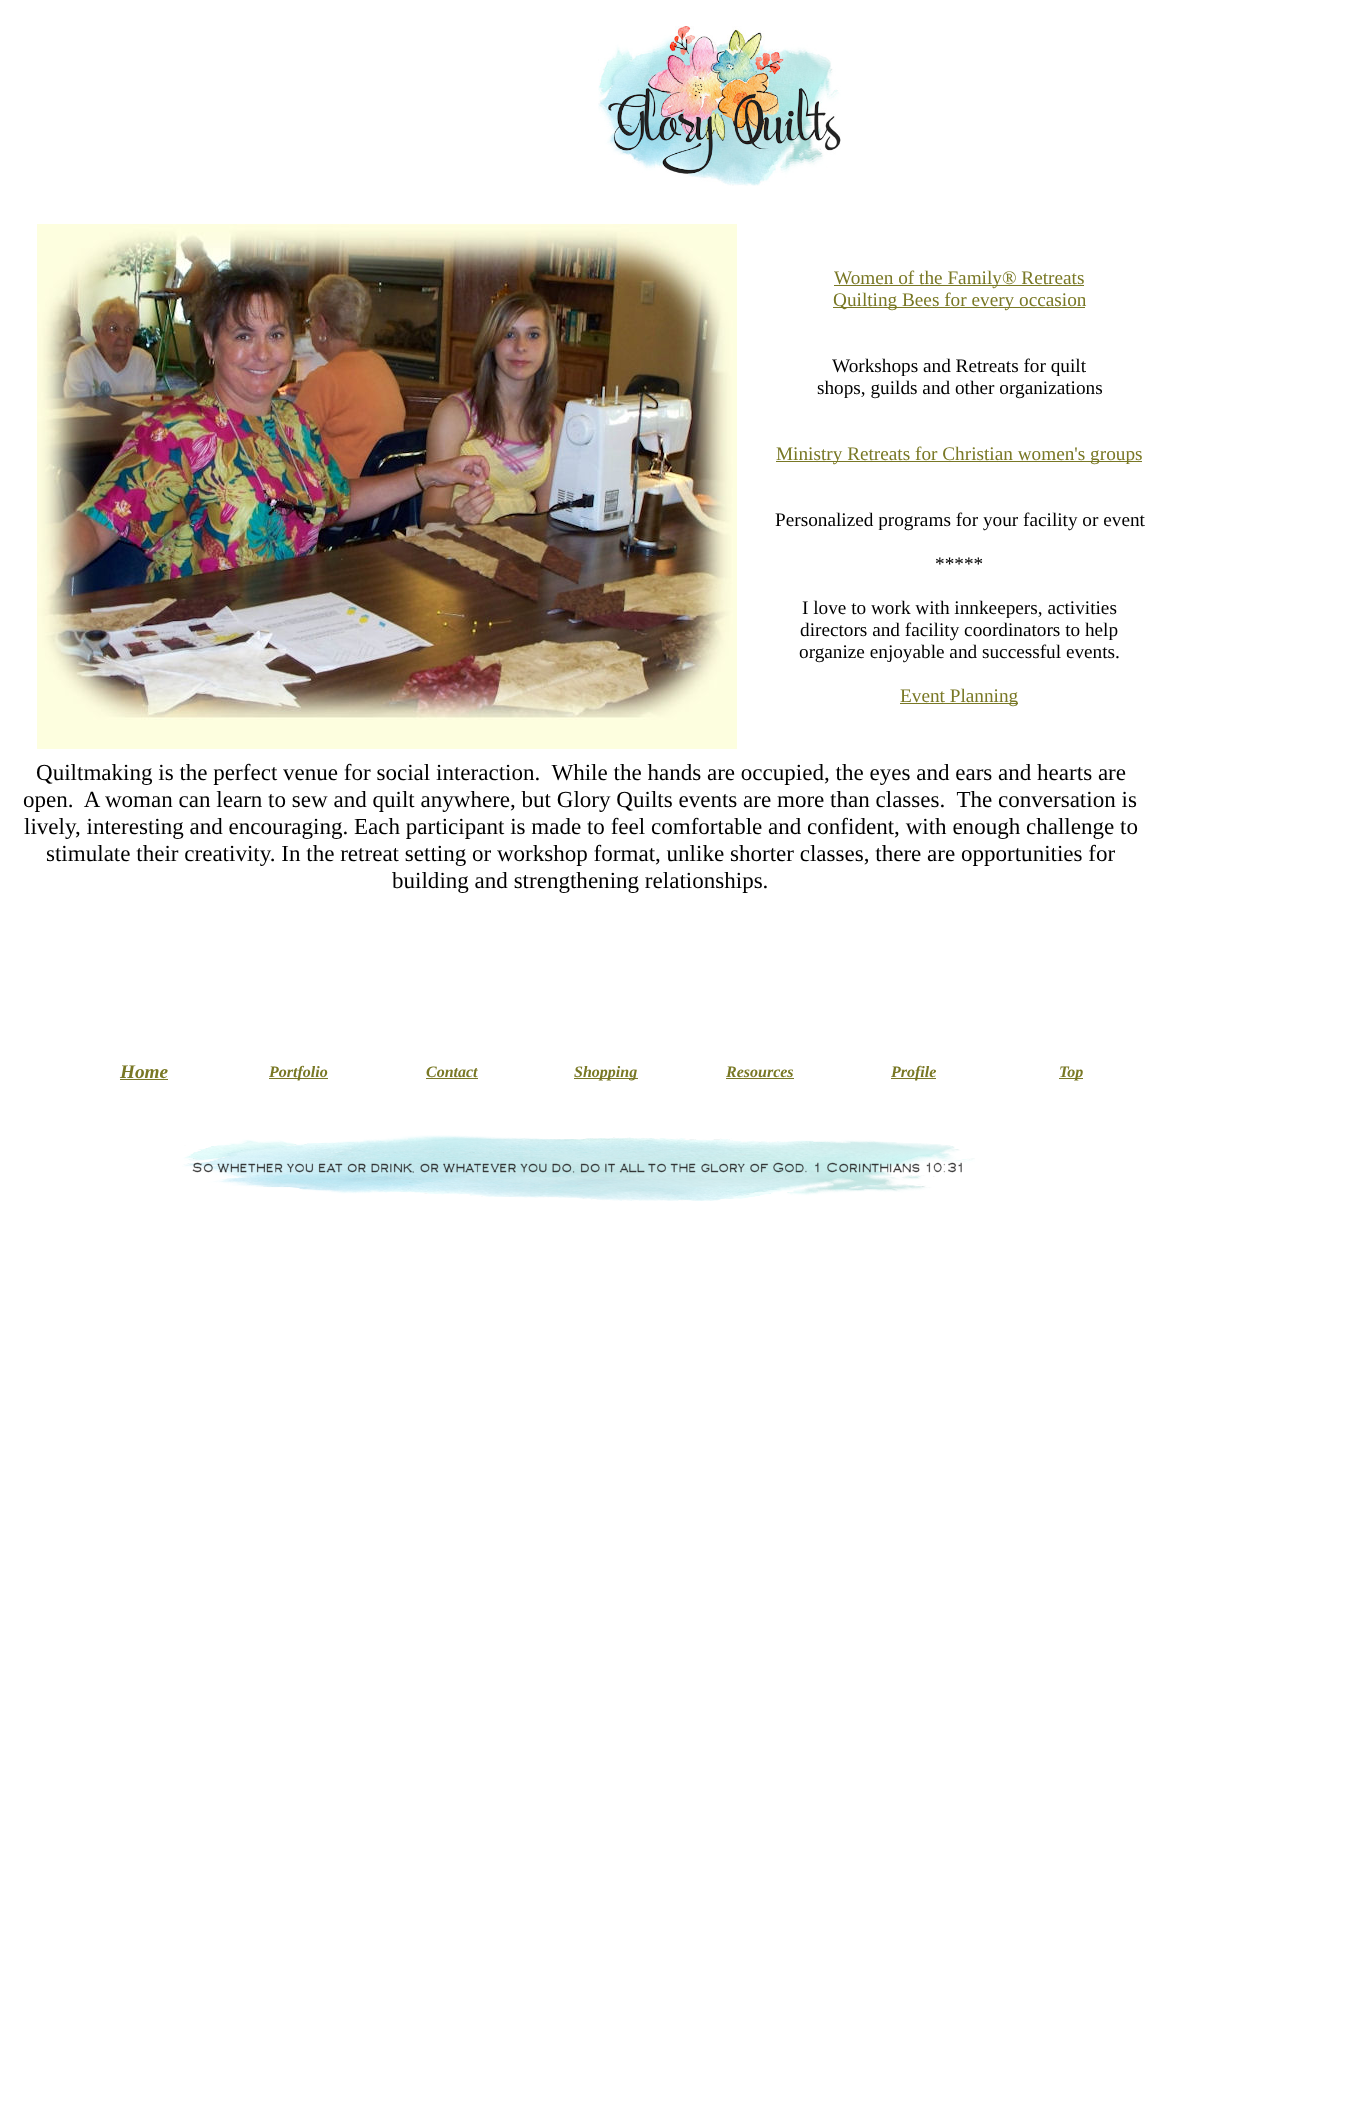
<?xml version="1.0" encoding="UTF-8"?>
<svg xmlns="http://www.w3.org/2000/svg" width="1352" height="2120">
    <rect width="100%" height="100%" fill="#FFFFFF"/>
    <image x="598" y="26" width="243" height="160" href="img_01.png"/>
    <image x="37" y="224" width="700" height="525" href="img_02.png"/>
    <rect x="834" y="285" width="250" height="1" fill="#797825"/>
    <text x="834" y="284" font-family="Liberation Serif" font-size="19.25" fill="#797825">Women of the Family® Retreats</text>
    <rect x="833" y="307" width="252" height="1" fill="#797825"/>
    <text x="833" y="306" font-family="Liberation Serif" font-size="19.25" fill="#797825">Quilting Bees for every occasion</text>
    <text x="832" y="372" font-family="Liberation Serif" font-size="19.25" fill="#000000">Workshops and Retreats for quilt</text>
    <text x="817" y="394" font-family="Liberation Serif" font-size="19.25" fill="#000000">shops, guilds and other organizations</text>
    <rect x="776" y="461" width="366" height="1" fill="#797825"/>
    <text x="776" y="460" font-family="Liberation Serif" font-size="19.25" fill="#797825">Ministry Retreats for Christian women's groups</text>
    <text x="775" y="526" font-family="Liberation Serif" font-size="19.25" fill="#000000">Personalized programs for your facility or event</text>
    <text x="935" y="570" font-family="Liberation Serif" font-size="19.25" fill="#000000">*****</text>
    <text x="802" y="614" font-family="Liberation Serif" font-size="19.25" fill="#000000">I love to work with innkeepers, activities</text>
    <text x="800" y="636" font-family="Liberation Serif" font-size="19.25" fill="#000000">directors and facility coordinators to help</text>
    <text x="799" y="658" font-family="Liberation Serif" font-size="19.25" fill="#000000">organize enjoyable and successful events.</text>
    <rect x="900" y="703" width="118" height="1" fill="#797825"/>
    <text x="900" y="702" font-family="Liberation Serif" font-size="19.25" fill="#797825">Event Planning</text>
    <text x="36" y="780" font-family="Liberation Serif" font-size="23.05" fill="#000000" xml:space="preserve">Quiltmaking is the perfect venue for social interaction.  While the hands are occupied, the eyes and ears and hearts are</text>
    <text x="23" y="807" font-family="Liberation Serif" font-size="23.05" fill="#000000" xml:space="preserve">open.  A woman can learn to sew and quilt anywhere, but Glory Quilts events are more than classes.  The conversation is</text>
    <text x="24" y="834" font-family="Liberation Serif" font-size="23.05" fill="#000000">lively, interesting and encouraging. Each participant is made to feel comfortable and confident, with enough challenge to</text>
    <text x="46" y="861" font-family="Liberation Serif" font-size="23.05" fill="#000000">stimulate their creativity. In the retreat setting or workshop format, unlike shorter classes, there are opportunities for</text>
    <text x="392" y="888" font-family="Liberation Serif" font-size="23.05" fill="#000000">building and strengthening relationships.</text>
    <text x="120" y="1078" font-family="Liberation Serif" font-size="19.25" font-weight="700" font-style="italic" fill="#797825">Home</text>
    <rect x="120" y="1079" width="48" height="1" fill="#797825"/>
    <rect x="269" y="1078" width="59" height="1" fill="#797825"/>
    <text x="269" y="1077" font-family="Liberation Serif" font-size="16" font-weight="700" font-style="italic" fill="#797825">Portfolio</text>
    <text x="426" y="1077" font-family="Liberation Serif" font-size="16" font-weight="700" font-style="italic" fill="#797825">Contact</text>
    <rect x="426" y="1078" width="52" height="1" fill="#797825"/>
    <rect x="574" y="1078" width="64" height="1" fill="#797825"/>
    <text x="574" y="1077" font-family="Liberation Serif" font-size="16" font-weight="700" font-style="italic" fill="#797825">Shopping</text>
    <text x="726" y="1077" font-family="Liberation Serif" font-size="16" font-weight="700" font-style="italic" fill="#797825">Resources</text>
    <rect x="726" y="1078" width="68" height="1" fill="#797825"/>
    <rect x="891" y="1078" width="45" height="1" fill="#797825"/>
    <text x="891" y="1077" font-family="Liberation Serif" font-size="16" font-weight="700" font-style="italic" fill="#797825">Profile</text>
    <rect x="1059" y="1078" width="24" height="1" fill="#797825"/>
    <text x="1059" y="1077" font-family="Liberation Serif" font-size="16" font-weight="700" font-style="italic" fill="#797825">Top</text>
    <image x="182" y="1135" width="793" height="66" href="img_03.png"/>
</svg>
